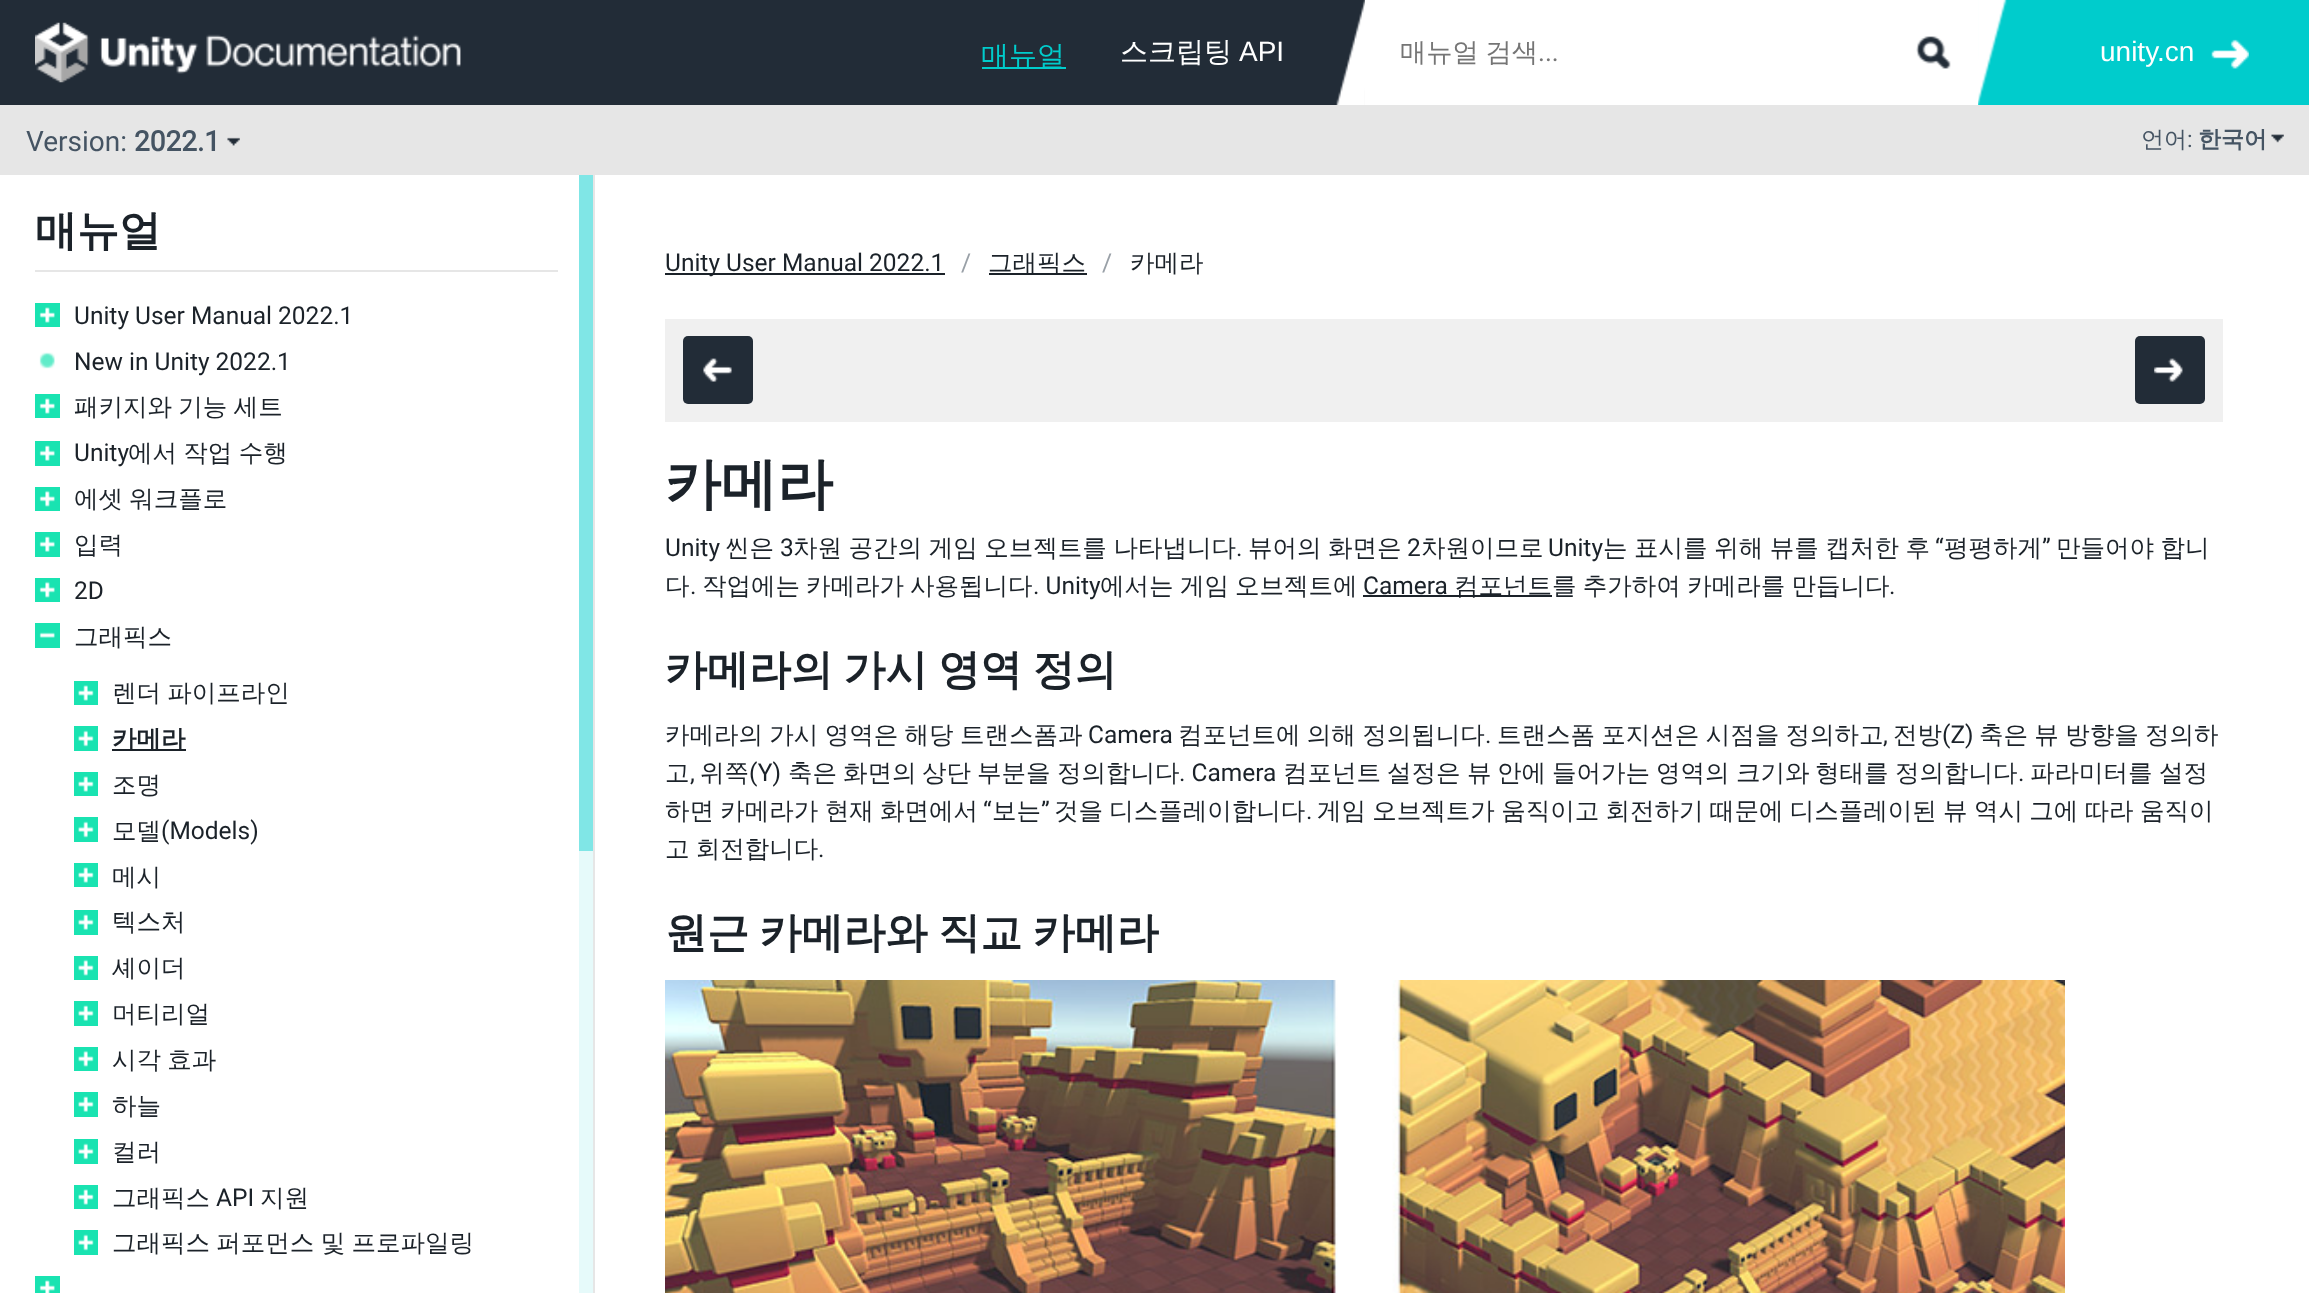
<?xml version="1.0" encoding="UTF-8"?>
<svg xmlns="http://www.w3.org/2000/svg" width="2309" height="1293">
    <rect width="100%" height="100%" fill="#FFFFFF"/>
    <rect x="0" y="0" width="1365" height="105" fill="#222C37"/>
    <image x="35" y="22" width="426" height="61" href="img_01.png"/>
    <text x="981" y="65" font-family="WenQuanYi Zen Hei" font-size="28" font-weight="500" fill="#00CCCC">매뉴얼</text>
    <rect x="982" y="67" width="84" height="2" fill="#00CCCC"/>
    <text x="1120" y="61" font-family="WenQuanYi Zen Hei" font-size="28" font-weight="500" fill="#FFFFFF">스크립팅</text>
    <text x="1239" y="61" font-family="Liberation Sans" font-size="28" fill="#FFFFFF">API</text>
    <image x="1336" y="0" width="29" height="105" href="img_02.png"/>
    <text x="1400" y="61" word-spacing="-1" font-family="WenQuanYi Zen Hei" font-size="26.25" font-weight="500" fill="#757575">매뉴얼 검색</text>
    <text x="1538" y="61" font-family="Roboto" font-size="26.25" fill="#757575">...</text>
    <image x="1916" y="36" width="35" height="33" href="img_03.png"/>
    <rect x="1978" y="0" width="331" height="105" fill="#00CCCC"/>
    <image x="1978" y="0" width="29" height="105" href="img_04.png"/>
    <image x="2211" y="39" width="38" height="30" href="img_05.png"/>
    <text x="2100" y="61" font-family="Liberation Sans" font-size="28" fill="#FFFFFF">unity.cn</text>
    <rect x="0" y="105" width="2309" height="70" fill="#E6E6E6"/>
    <text x="26" y="151" font-family="Roboto" font-size="28" fill="#455463">Version:</text>
    <text x="134" y="151" font-family="Roboto" font-size="28" font-weight="700" fill="#455463">2022.1</text>
    <image x="227" y="137" width="13" height="9" href="img_06.png"/>
    <text x="2141" y="147" font-family="WenQuanYi Zen Hei" font-size="23" font-weight="500" fill="#455463">언어</text>
    <text x="2187" y="147" font-family="Roboto" font-size="23" fill="#455463">:</text>
    <text x="2198" y="147" font-family="WenQuanYi Zen Hei" font-size="23" font-weight="700" fill="#455463">한국어</text>
    <image x="2271" y="134" width="13" height="9" href="img_07.png"/>
    <rect x="593" y="175" width="2" height="1118" fill="#E6E6E6"/>
    <rect x="35" y="270" width="523" height="2" fill="#E6E6E6"/>
    <text x="35" y="245" font-family="WenQuanYi Zen Hei" font-size="42" font-weight="700" fill="#1B2229">매뉴얼</text>
    <rect x="35" y="303" width="25" height="24" fill="#19E3B1"/>
    <image x="39" y="307" width="16" height="16" href="img_08.png"/>
    <text x="74" y="324" font-family="Roboto" font-size="24.5" fill="#1B2229">Unity User Manual 2022.1</text>
    <image x="39" y="352" width="16" height="17" href="img_09.png"/>
    <text x="74" y="370" font-family="Roboto" font-size="24.5" fill="#1B2229">New in Unity 2022.1</text>
    <rect x="35" y="394" width="25" height="24" fill="#19E3B1"/>
    <image x="39" y="398" width="16" height="16" href="img_08.png"/>
    <text x="74" y="415" word-spacing="-1" font-family="WenQuanYi Zen Hei" font-size="24.5" font-weight="500" fill="#1B2229">패키지와 기능 세트</text>
    <rect x="35" y="441" width="25" height="25" fill="#19E3B1"/>
    <image x="39" y="445" width="16" height="16" href="img_10.png"/>
    <text x="74" y="461" font-family="Roboto" font-size="24.5" fill="#1B2229">Unity</text>
    <text x="128" y="461" word-spacing="-1" font-family="WenQuanYi Zen Hei" font-size="24.5" font-weight="500" fill="#1B2229">에서 작업 수행</text>
    <rect x="35" y="487" width="25" height="24" fill="#19E3B1"/>
    <image x="39" y="490" width="16" height="17" href="img_11.png"/>
    <text x="74" y="507" word-spacing="-1" font-family="WenQuanYi Zen Hei" font-size="24.5" font-weight="500" fill="#1B2229">에셋 워크플로</text>
    <rect x="35" y="532" width="25" height="25" fill="#19E3B1"/>
    <image x="39" y="536" width="16" height="16" href="img_10.png"/>
    <text x="74" y="553" font-family="WenQuanYi Zen Hei" font-size="24.5" font-weight="500" fill="#1B2229">입력</text>
    <rect x="35" y="578" width="25" height="24" fill="#19E3B1"/>
    <image x="39" y="581" width="16" height="17" href="img_11.png"/>
    <text x="74" y="599" font-family="Roboto" font-size="24.5" fill="#1B2229">2D</text>
    <rect x="35" y="623" width="25" height="25" fill="#19E3B1"/>
    <image x="39" y="632" width="16" height="6" href="img_12.png"/>
    <text x="74" y="645" font-family="WenQuanYi Zen Hei" font-size="24.5" font-weight="500" fill="#1B2229">그래픽스</text>
    <rect x="74" y="681" width="24" height="24" fill="#19E3B1"/>
    <image x="78" y="685" width="16" height="16" href="img_13.png"/>
    <text x="112" y="701" word-spacing="-1" font-family="WenQuanYi Zen Hei" font-size="24.5" font-weight="500" fill="#1B2229">렌더 파이프라인</text>
    <rect x="74" y="726" width="24" height="25" fill="#19E3B1"/>
    <image x="78" y="730" width="16" height="17" href="img_14.png"/>
    <rect x="112" y="749" width="74" height="2" fill="#1B2229"/>
    <text x="112" y="747" font-family="WenQuanYi Zen Hei" font-size="24.5" font-weight="700" fill="#1B2229">카메라</text>
    <rect x="74" y="772" width="24" height="24" fill="#19E3B1"/>
    <image x="78" y="776" width="16" height="16" href="img_13.png"/>
    <text x="112" y="793" font-family="WenQuanYi Zen Hei" font-size="24.5" font-weight="500" fill="#1B2229">조명</text>
    <rect x="74" y="817" width="24" height="25" fill="#19E3B1"/>
    <image x="78" y="821" width="16" height="17" href="img_14.png"/>
    <text x="112" y="839" font-family="WenQuanYi Zen Hei" font-size="24.5" font-weight="500" fill="#1B2229">모델</text>
    <text x="161" y="839" font-family="Roboto" font-size="24.5" fill="#1B2229">(Models)</text>
    <rect x="74" y="863" width="24" height="24" fill="#19E3B1"/>
    <image x="78" y="867" width="16" height="16" href="img_13.png"/>
    <text x="112" y="885" font-family="WenQuanYi Zen Hei" font-size="24.5" font-weight="500" fill="#1B2229">메시</text>
    <rect x="74" y="910" width="24" height="25" fill="#19E3B1"/>
    <image x="78" y="914" width="16" height="16" href="img_15.png"/>
    <text x="112" y="930" font-family="WenQuanYi Zen Hei" font-size="24.5" font-weight="500" fill="#1B2229">텍스처</text>
    <rect x="74" y="956" width="24" height="24" fill="#19E3B1"/>
    <image x="78" y="959" width="16" height="17" href="img_16.png"/>
    <text x="112" y="976" font-family="WenQuanYi Zen Hei" font-size="24.5" font-weight="500" fill="#1B2229">셰이더</text>
    <rect x="74" y="1001" width="24" height="25" fill="#19E3B1"/>
    <image x="78" y="1005" width="16" height="16" href="img_15.png"/>
    <text x="112" y="1022" font-family="WenQuanYi Zen Hei" font-size="24.5" font-weight="500" fill="#1B2229">머티리얼</text>
    <rect x="74" y="1047" width="24" height="24" fill="#19E3B1"/>
    <image x="78" y="1050" width="16" height="17" href="img_16.png"/>
    <text x="112" y="1068" word-spacing="-1" font-family="WenQuanYi Zen Hei" font-size="24.5" font-weight="500" fill="#1B2229">시각 효과</text>
    <rect x="74" y="1092" width="24" height="25" fill="#19E3B1"/>
    <image x="78" y="1096" width="16" height="16" href="img_15.png"/>
    <text x="112" y="1114" font-family="WenQuanYi Zen Hei" font-size="24.5" font-weight="500" fill="#1B2229">하늘</text>
    <rect x="74" y="1139" width="24" height="25" fill="#19E3B1"/>
    <image x="78" y="1143" width="16" height="17" href="img_14.png"/>
    <text x="112" y="1160" font-family="WenQuanYi Zen Hei" font-size="24.5" font-weight="500" fill="#1B2229">컬러</text>
    <rect x="74" y="1185" width="24" height="24" fill="#19E3B1"/>
    <image x="78" y="1189" width="16" height="16" href="img_13.png"/>
    <text x="112" y="1206" font-family="WenQuanYi Zen Hei" font-size="24.5" font-weight="500" fill="#1B2229">그래픽스</text>
    <text x="216" y="1206" font-family="Roboto" font-size="24.5" fill="#1B2229">API</text>
    <text x="260" y="1206" font-family="WenQuanYi Zen Hei" font-size="24.5" font-weight="500" fill="#1B2229">지원</text>
    <rect x="74" y="1230" width="24" height="25" fill="#19E3B1"/>
    <image x="78" y="1234" width="16" height="17" href="img_14.png"/>
    <text x="112" y="1251" word-spacing="-1" font-family="WenQuanYi Zen Hei" font-size="24.5" font-weight="500" fill="#1B2229">그래픽스 퍼포먼스 및 프로파일링</text>
    <rect x="35" y="1276" width="25" height="17" fill="#19E3B1"/>
    <image x="39" y="1280" width="16" height="13" href="img_17.png"/>
    <rect x="579" y="175" width="14" height="676" fill="#80E6E6"/>
    <rect x="579" y="851" width="14" height="442" fill="#E6FAFA"/>
    <rect x="665" y="273" width="280" height="2" fill="#1B2229"/>
    <text x="665" y="271" font-family="Roboto" font-size="24.5" fill="#1B2229">Unity User Manual 2022.1</text>
    <text x="961" y="271" font-family="Roboto" font-size="24.5" fill="#99A0A7">/</text>
    <rect x="989" y="273" width="98" height="2" fill="#1B2229"/>
    <text x="988" y="271" font-family="WenQuanYi Zen Hei" font-size="24.5" font-weight="500" fill="#1B2229">그래픽스</text>
    <text x="1102" y="271" font-family="Roboto" font-size="24.5" fill="#99A0A7">/</text>
    <text x="1130" y="271" font-family="WenQuanYi Zen Hei" font-size="24.5" font-weight="500" fill="#1B2229">카메라</text>
    <rect x="665" y="319" width="1558" height="103" fill="#F0F0F0"/>
    <rect x="683" y="336" width="70" height="68" rx="5" fill="#222C37"/>
    <image x="703" y="358" width="29" height="24" href="img_18.png"/>
    <rect x="2135" y="336" width="70" height="68" rx="5" fill="#222C37"/>
    <image x="2154" y="358" width="29" height="24" href="img_19.png"/>
    <text x="665" y="503" font-family="WenQuanYi Zen Hei" font-size="56" font-weight="700" fill="#1B2229">카메라</text>
    <text x="665" y="556" font-family="Roboto" font-size="24.5" fill="#1B2229">Unity</text>
    <text x="725" y="556" font-family="WenQuanYi Zen Hei" font-size="24.5" font-weight="500" fill="#1B2229">씬은</text>
    <text x="780" y="556" font-family="Roboto" font-size="24.5" fill="#1B2229">3</text>
    <text x="793" y="556" word-spacing="-0.75" font-family="WenQuanYi Zen Hei" font-size="24.5" font-weight="500" fill="#1B2229">차원 공간의 게임 오브젝트를 나타냅니다</text>
    <text x="1236" y="556" font-family="Roboto" font-size="24.5" fill="#1B2229">.</text>
    <text x="1248" y="556" word-spacing="-0.75" font-family="WenQuanYi Zen Hei" font-size="24.5" font-weight="500" fill="#1B2229">뷰어의 화면은</text>
    <text x="1407" y="556" font-family="Roboto" font-size="24.5" fill="#1B2229">2</text>
    <text x="1421" y="556" font-family="WenQuanYi Zen Hei" font-size="24.5" font-weight="500" fill="#1B2229">차원이므로</text>
    <text x="1548" y="556" font-family="Roboto" font-size="24.5" fill="#1B2229">Unity</text>
    <text x="1603" y="556" word-spacing="-0.75" font-family="WenQuanYi Zen Hei" font-size="24.5" font-weight="500" fill="#1B2229">는 표시를 위해 뷰를 캡처한 후</text>
    <text x="1935" y="556" font-family="Roboto" font-size="24.5" fill="#1B2229">“</text>
    <text x="1944" y="556" font-family="WenQuanYi Zen Hei" font-size="24.5" font-weight="500" fill="#1B2229">평평하게</text>
    <text x="2042" y="556" font-family="Roboto" font-size="24.5" fill="#1B2229">”</text>
    <text x="2056" y="556" word-spacing="-0.75" font-family="WenQuanYi Zen Hei" font-size="24.5" font-weight="500" fill="#1B2229">만들어야 합니</text>
    <text x="665" y="594" font-family="WenQuanYi Zen Hei" font-size="24.5" font-weight="500" fill="#1B2229">다</text>
    <text x="690" y="594" font-family="Roboto" font-size="24.5" fill="#1B2229">.</text>
    <text x="702" y="594" font-family="WenQuanYi Zen Hei" font-size="24.5" font-weight="500" fill="#1B2229">작업에는</text>
    <text x="806" y="594" font-family="WenQuanYi Zen Hei" font-size="24.5" font-weight="500" fill="#1B2229">카메라가</text>
    <text x="910" y="594" font-family="WenQuanYi Zen Hei" font-size="24.5" font-weight="500" fill="#1B2229">사용됩니다</text>
    <text x="1033" y="594" font-family="Roboto" font-size="24.5" fill="#1B2229">. Unity</text>
    <text x="1100" y="594" font-family="WenQuanYi Zen Hei" font-size="24.5" font-weight="500" fill="#1B2229">에서는</text>
    <text x="1180" y="594" font-family="WenQuanYi Zen Hei" font-size="24.5" font-weight="500" fill="#1B2229">게임</text>
    <text x="1235" y="594" font-family="WenQuanYi Zen Hei" font-size="24.5" font-weight="500" fill="#1B2229">오브젝트에</text>
    <text x="1363" y="594" font-family="Roboto" font-size="24.5" fill="#1B2229">Camera</text>
    <rect x="1363" y="595" width="189" height="2" fill="#1B2229"/>
    <text x="1454" y="594" font-family="WenQuanYi Zen Hei" font-size="24.5" font-weight="500" fill="#1B2229">컴포넌트</text>
    <text x="1552" y="594" word-spacing="-1" font-family="WenQuanYi Zen Hei" font-size="24.5" font-weight="500" fill="#1B2229">를 추가하여 카메라를 만듭니다</text>
    <text x="1889" y="594" font-family="Roboto" font-size="24.5" fill="#1B2229">.</text>
    <text x="665" y="684" word-spacing="-2" font-family="WenQuanYi Zen Hei" font-size="42" font-weight="700" fill="#1B2229">카메라의 가시 영역 정의</text>
    <text x="665" y="743" word-spacing="-1" font-family="WenQuanYi Zen Hei" font-size="24.5" font-weight="500" fill="#1B2229">카메라의 가시 영역은 해당 트랜스폼과</text>
    <text x="1088" y="743" font-family="Roboto" font-size="24.5" fill="#1B2229">Camera</text>
    <text x="1178" y="743" word-spacing="-1" font-family="WenQuanYi Zen Hei" font-size="24.5" font-weight="500" fill="#1B2229">컴포넌트에 의해 정의됩니다</text>
    <text x="1485" y="743" font-family="Roboto" font-size="24.5" fill="#1B2229">.</text>
    <text x="1497" y="743" word-spacing="-1" font-family="WenQuanYi Zen Hei" font-size="24.5" font-weight="500" fill="#1B2229">트랜스폼 포지션은 시점을 정의하고</text>
    <text x="1883" y="743" font-family="Roboto" font-size="24.5" fill="#1B2229">,</text>
    <text x="1893" y="743" font-family="WenQuanYi Zen Hei" font-size="24.5" font-weight="500" fill="#1B2229">전방</text>
    <text x="1942" y="743" font-family="Roboto" font-size="24.5" fill="#1B2229">(Z)</text>
    <text x="1979" y="743" word-spacing="-1" font-family="WenQuanYi Zen Hei" font-size="24.5" font-weight="500" fill="#1B2229">축은 뷰 방향을 정의하</text>
    <text x="665" y="781" font-family="WenQuanYi Zen Hei" font-size="24.5" font-weight="500" fill="#1B2229">고</text>
    <text x="690" y="781" font-family="Roboto" font-size="24.5" fill="#1B2229">,</text>
    <text x="700" y="781" font-family="WenQuanYi Zen Hei" font-size="24.5" font-weight="500" fill="#1B2229">위쪽</text>
    <text x="749" y="781" font-family="Roboto" font-size="24.5" fill="#1B2229">(Y)</text>
    <text x="788" y="781" font-family="WenQuanYi Zen Hei" font-size="24.5" font-weight="500" fill="#1B2229">축은</text>
    <text x="843" y="781" font-family="WenQuanYi Zen Hei" font-size="24.5" font-weight="500" fill="#1B2229">화면의</text>
    <text x="922" y="781" font-family="WenQuanYi Zen Hei" font-size="24.5" font-weight="500" fill="#1B2229">상단</text>
    <text x="977" y="781" font-family="WenQuanYi Zen Hei" font-size="24.5" font-weight="500" fill="#1B2229">부분을</text>
    <text x="1057" y="781" font-family="WenQuanYi Zen Hei" font-size="24.5" font-weight="500" fill="#1B2229">정의합니다</text>
    <text x="1179" y="781" font-family="Roboto" font-size="24.5" fill="#1B2229">. Camera</text>
    <text x="1283" y="781" font-family="WenQuanYi Zen Hei" font-size="24.5" font-weight="500" fill="#1B2229">컴포넌트</text>
    <text x="1387" y="781" font-family="WenQuanYi Zen Hei" font-size="24.5" font-weight="500" fill="#1B2229">설정은</text>
    <text x="1467" y="781" font-family="WenQuanYi Zen Hei" font-size="24.5" font-weight="500" fill="#1B2229">뷰</text>
    <text x="1497" y="781" font-family="WenQuanYi Zen Hei" font-size="24.5" font-weight="500" fill="#1B2229">안에</text>
    <text x="1552" y="781" font-family="WenQuanYi Zen Hei" font-size="24.5" font-weight="500" fill="#1B2229">들어가는</text>
    <text x="1656" y="781" font-family="WenQuanYi Zen Hei" font-size="24.5" font-weight="500" fill="#1B2229">영역의</text>
    <text x="1736" y="781" font-family="WenQuanYi Zen Hei" font-size="24.5" font-weight="500" fill="#1B2229">크기와</text>
    <text x="1815" y="781" font-family="WenQuanYi Zen Hei" font-size="24.5" font-weight="500" fill="#1B2229">형태를</text>
    <text x="1895" y="781" font-family="WenQuanYi Zen Hei" font-size="24.5" font-weight="500" fill="#1B2229">정의합니다</text>
    <text x="2018" y="781" font-family="Roboto" font-size="24.5" fill="#1B2229">.</text>
    <text x="2030" y="781" font-family="WenQuanYi Zen Hei" font-size="24.5" font-weight="500" fill="#1B2229">파라미터를</text>
    <text x="2159" y="781" font-family="WenQuanYi Zen Hei" font-size="24.5" font-weight="500" fill="#1B2229">설정</text>
    <text x="665" y="819" word-spacing="-1" font-family="WenQuanYi Zen Hei" font-size="24.5" font-weight="500" fill="#1B2229">하면 카메라가 현재 화면에서</text>
    <text x="983" y="819" font-family="Roboto" font-size="24.5" fill="#1B2229">“</text>
    <text x="992" y="819" font-family="WenQuanYi Zen Hei" font-size="24.5" font-weight="500" fill="#1B2229">보는</text>
    <text x="1041" y="819" font-family="Roboto" font-size="24.5" fill="#1B2229">”</text>
    <text x="1054" y="819" word-spacing="-1" font-family="WenQuanYi Zen Hei" font-size="24.5" font-weight="500" fill="#1B2229">것을 디스플레이합니다</text>
    <text x="1306" y="819" font-family="Roboto" font-size="24.5" fill="#1B2229">.</text>
    <text x="1317" y="819" word-spacing="-1" font-family="WenQuanYi Zen Hei" font-size="24.5" font-weight="500" fill="#1B2229">게임 오브젝트가 움직이고 회전하기 때문에 디스플레이된 뷰 역시 그에 따라 움직이</text>
    <text x="665" y="857" word-spacing="-1" font-family="WenQuanYi Zen Hei" font-size="24.5" font-weight="500" fill="#1B2229">고 회전합니다</text>
    <text x="818" y="857" font-family="Roboto" font-size="24.5" fill="#1B2229">.</text>
    <text x="665" y="947" word-spacing="-2" font-family="WenQuanYi Zen Hei" font-size="42" font-weight="700" fill="#1B2229">원근 카메라와 직교 카메라</text>
    <image x="665" y="980" width="1400" height="313" href="img_20.png"/>
</svg>
